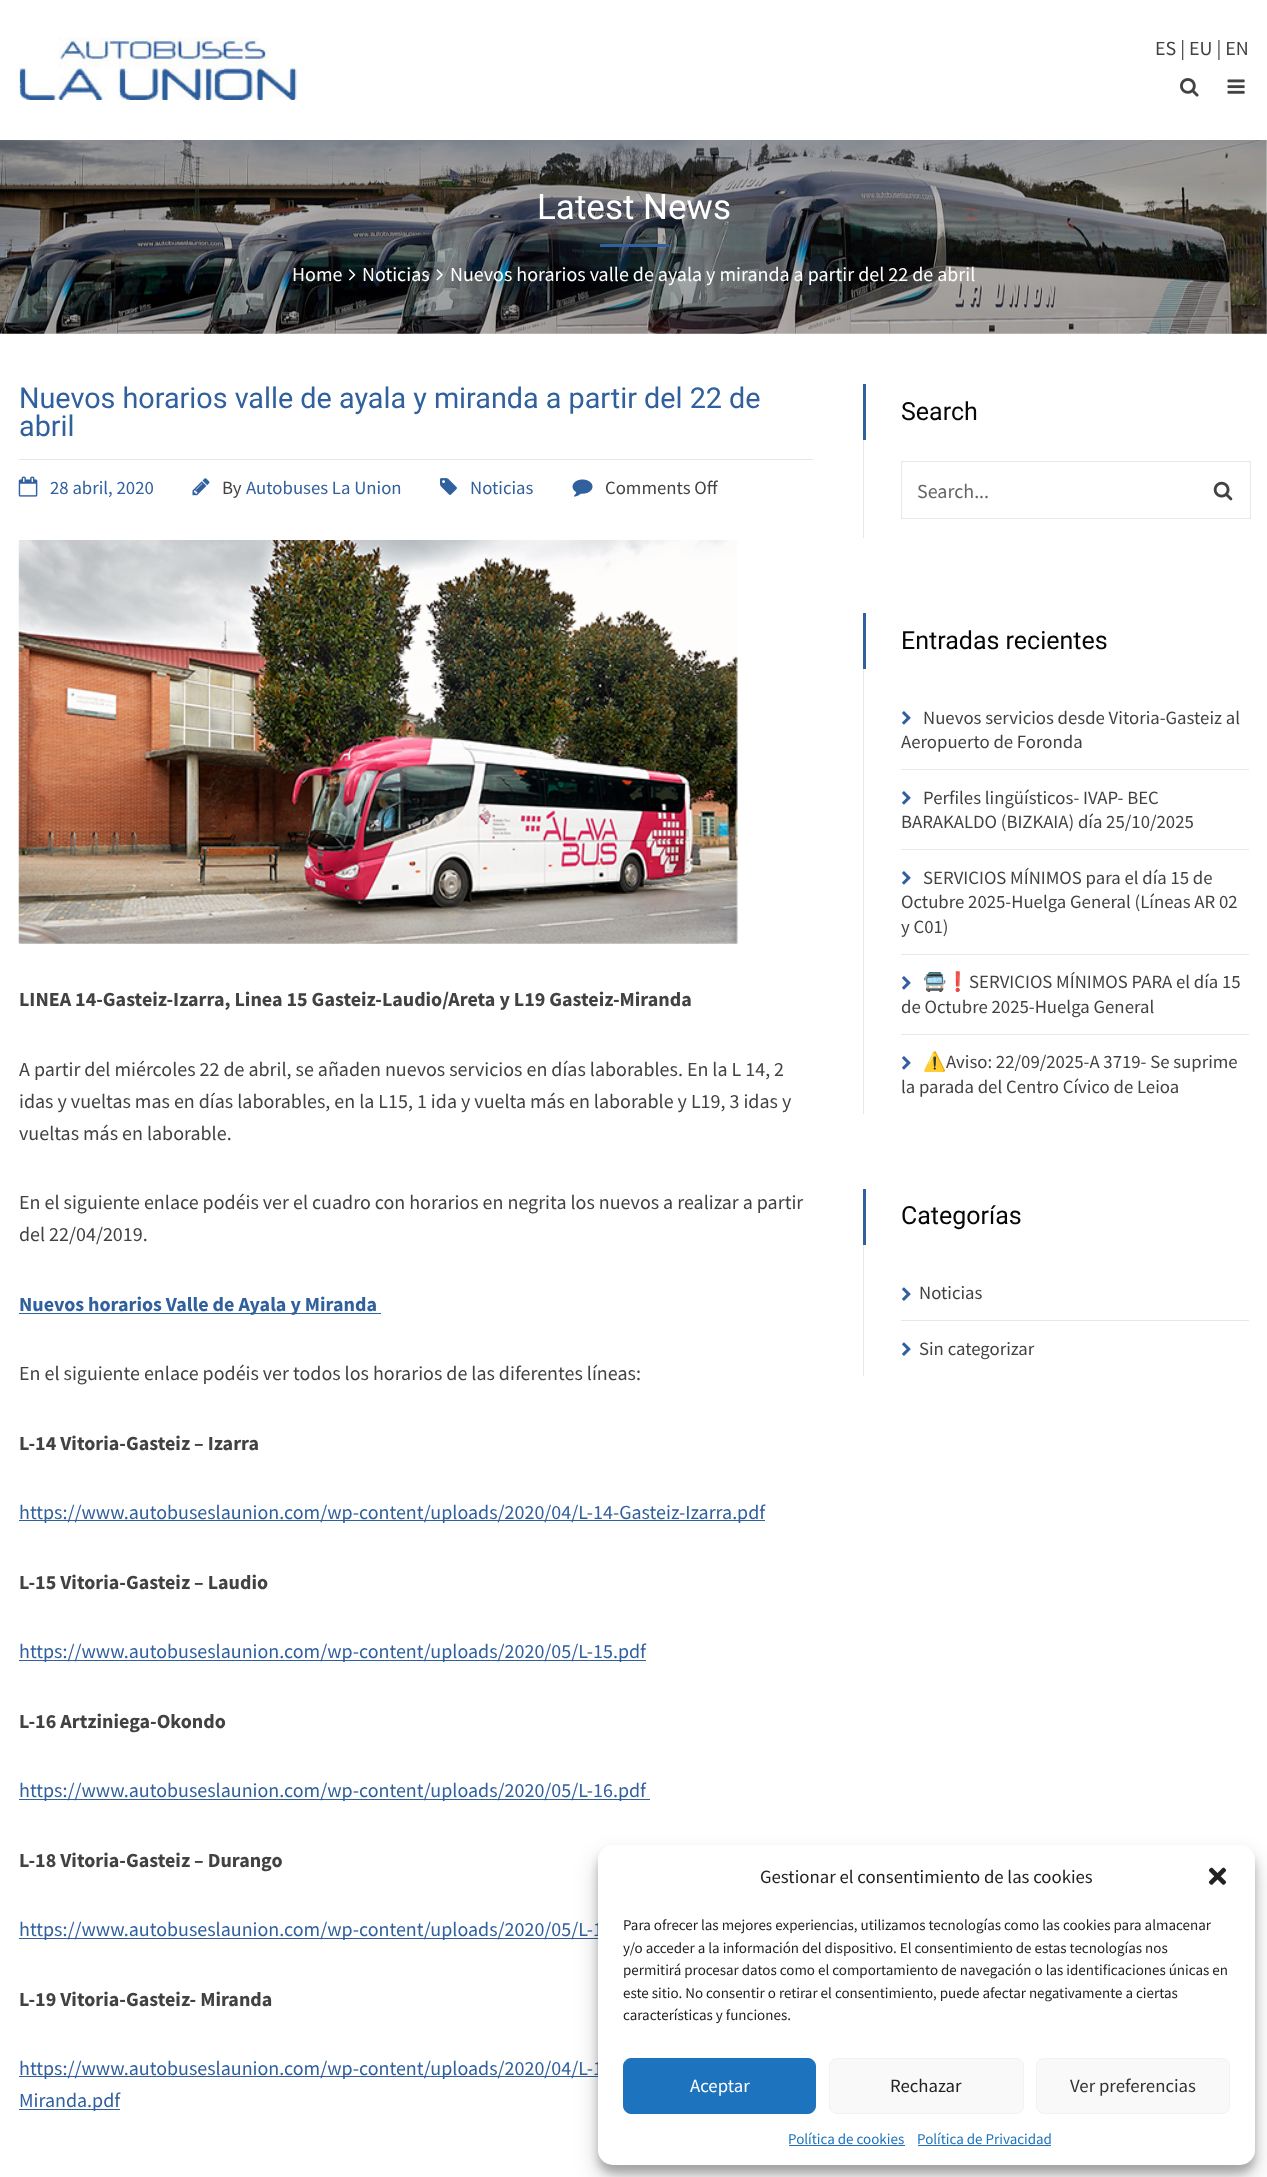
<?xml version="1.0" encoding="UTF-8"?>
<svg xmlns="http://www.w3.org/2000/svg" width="1267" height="2177">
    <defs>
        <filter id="blur1" x="-50%" y="-200%" width="200%" height="500%"><feGaussianBlur stdDeviation="4"/></filter>
        <filter id="blur2" x="-50%" y="-200%" width="200%" height="500%"><feGaussianBlur stdDeviation="12.5"/></filter>
    </defs>
    <rect width="100%" height="100%" fill="#FFFFFF"/>
    <image x="18" y="37" width="280" height="63" href="img_01.png"/>
    <text x="1155" y="55" font-family="Source Sans Pro" font-size="20" fill="#424242">ES | EU | EN</text>
    <image x="1180" y="78" width="19" height="19" href="img_02.png"/>
    <image x="1227" y="79" width="18" height="15" href="img_03.png"/>
    <image x="0" y="140" width="1267" height="194" href="img_04.png"/>
    <text x="537" y="219" font-family="Roboto" font-size="35" fill="#FFFFFF">Latest News</text>
    <rect x="600" y="244" width="69" height="3" fill="#30609D"/>
    <text x="292" y="281" font-family="Source Sans Pro" font-size="20" fill="#FFFFFF">Home</text>
    <image x="348" y="269" width="8" height="12" href="img_05.png"/>
    <text x="362" y="281" font-family="Source Sans Pro" font-size="20" fill="#FFFFFF">Noticias</text>
    <image x="436" y="269" width="7" height="12" href="img_06.png"/>
    <text x="450" y="281" font-family="Source Sans Pro" font-size="20" fill="#FFFFFF">Nuevos horarios valle de ayala y miranda a partir del 22 de abril</text>
    <text font-family="Roboto" font-size="28.75" fill="#30609D">
        <tspan x="19" y="408">Nuevos horarios valle de ayala y miranda a partir del 22 de</tspan>
        <tspan x="19" y="436">abril</tspan>
    </text>
    <rect x="19" y="459" width="794" height="1" fill="#E8E8E8"/>
    <image x="18" y="476" width="20" height="21" href="img_07.png"/>
    <text x="50" y="494" font-family="Source Sans Pro" font-size="18.75" fill="#30609D">28 abril, 2020</text>
    <image x="192" y="478" width="18" height="18" href="img_08.png"/>
    <text x="222" y="494" font-family="Source Sans Pro" font-size="18.75" fill="#424242">By</text>
    <text x="246" y="494" font-family="Source Sans Pro" font-size="18.75" fill="#30609D">Autobuses La Union</text>
    <image x="440" y="478" width="17" height="17" href="img_09.png"/>
    <text x="470" y="494" font-family="Source Sans Pro" font-size="18.75" fill="#30609D">Noticias</text>
    <image x="572" y="479" width="21" height="18" href="img_10.png"/>
    <text x="605" y="494" font-family="Source Sans Pro" font-size="18.75" fill="#424242">Comments Off</text>
    <image x="18" y="540" width="720" height="404" href="img_11.png"/>
    <text x="19" y="1006" font-family="Source Sans Pro" font-size="20" font-weight="700" fill="#424242">LINEA 14-Gasteiz-Izarra, Linea 15 Gasteiz-Laudio/Areta y L19 Gasteiz-Miranda</text>
    <text font-family="Source Sans Pro" font-size="20" fill="#424242">
        <tspan x="19" y="1076">A partir del miércoles 22 de abril, se añaden nuevos servicios en días laborables. En la L 14, 2</tspan>
        <tspan x="19" y="1108">idas y vueltas mas en días laborables, en la L15, 1 ida y vuelta más en laborable y L19, 3 idas y</tspan>
        <tspan x="19" y="1140">vueltas más en laborable.</tspan>
    </text>
    <text font-family="Source Sans Pro" font-size="20" fill="#424242">
        <tspan x="19" y="1209">En el siguiente enlace podéis ver el cuadro con horarios en negrita los nuevos a realizar a partir</tspan>
        <tspan x="19" y="1241">del 22/04/2019.</tspan>
    </text>
    <rect x="19" y="1313" width="362" height="1" fill="#30609D"/>
    <text x="19" y="1311" font-family="Source Sans Pro" font-size="20" font-weight="700" fill="#30609D">Nuevos horarios Valle de Ayala y Miranda</text>
    <text x="19" y="1380" font-family="Source Sans Pro" font-size="20" fill="#424242">En el siguiente enlace podéis ver todos los horarios de las diferentes líneas:</text>
    <text x="19" y="1450" font-family="Source Sans Pro" font-size="20" font-weight="700" fill="#424242">L-14 Vitoria-Gasteiz – Izarra</text>
    <rect x="19" y="1520" width="746" height="1" fill="#30609D"/>
    <text x="19" y="1519" font-family="Source Sans Pro" font-size="20" fill="#30609D">https://www.autobuseslaunion.com/wp-content/uploads/2020/04/L-14-Gasteiz-Izarra.pdf</text>
    <text x="19" y="1589" font-family="Source Sans Pro" font-size="20" font-weight="700" fill="#424242">L-15 Vitoria-Gasteiz – Laudio</text>
    <rect x="19" y="1660" width="627" height="1" fill="#30609D"/>
    <text x="19" y="1658" font-family="Source Sans Pro" font-size="20" fill="#30609D">https://www.autobuseslaunion.com/wp-content/uploads/2020/05/L-15.pdf</text>
    <text x="19" y="1728" font-family="Source Sans Pro" font-size="20" font-weight="700" fill="#424242">L-16 Artziniega-Okondo</text>
    <rect x="19" y="1799" width="631" height="1" fill="#30609D"/>
    <text x="19" y="1797" font-family="Source Sans Pro" font-size="20" fill="#30609D">https://www.autobuseslaunion.com/wp-content/uploads/2020/05/L-16.pdf</text>
    <text x="19" y="1867" font-family="Source Sans Pro" font-size="20" font-weight="700" fill="#424242">L-18 Vitoria-Gasteiz – Durango</text>
    <rect x="19" y="1938" width="579" height="1" fill="#30609D"/>
    <text x="19" y="1936" font-family="Source Sans Pro" font-size="20" fill="#30609D">https://www.autobuseslaunion.com/wp-content/uploads/2020/05/L-1</text>
    <text x="19" y="2006" font-family="Source Sans Pro" font-size="20" font-weight="700" fill="#424242">L-19 Vitoria-Gasteiz- Miranda</text>
    <rect x="19" y="2076" width="579" height="1" fill="#30609D"/>
    <text x="19" y="2075" font-family="Source Sans Pro" font-size="20" fill="#30609D">https://www.autobuseslaunion.com/wp-content/uploads/2020/04/L-1</text>
    <rect x="19" y="2109" width="101" height="1" fill="#30609D"/>
    <text x="19" y="2107" font-family="Source Sans Pro" font-size="20" fill="#30609D">Miranda.pdf</text>
    <rect x="863" y="440" width="1" height="98" fill="#E8E8E8"/>
    <rect x="863" y="384" width="3" height="56" fill="#30609D"/>
    <text x="901" y="420" font-family="Roboto" font-size="25" fill="#070707">Search</text>
    <rect x="901.5" y="461.5" width="349" height="57" fill="none" stroke="#E8E8E8"/>
    <text x="917" y="498" font-family="Source Sans Pro" font-size="20" fill="#666666">Search...</text>
    <image x="1213" y="481" width="20" height="20" href="img_12.png"/>
    <rect x="863" y="669" width="1" height="445" fill="#E8E8E8"/>
    <rect x="863" y="613" width="3" height="56" fill="#30609D"/>
    <text x="901" y="649" font-family="Roboto" font-size="25" fill="#070707">Entradas recientes</text>
    <rect x="901" y="769" width="348" height="1" fill="#E8E8E8"/>
    <image x="902" y="711" width="9" height="14" href="img_13.png"/>
    <text x="923" y="724" font-family="Source Sans Pro" font-size="18.75" fill="#424242">Nuevos servicios desde Vitoria-Gasteiz al</text>
    <text x="901" y="748" font-family="Source Sans Pro" font-size="18.75" fill="#424242">Aeropuerto de Foronda</text>
    <rect x="901" y="849" width="348" height="1" fill="#E8E8E8"/>
    <image x="902" y="791" width="9" height="14" href="img_13.png"/>
    <text x="923" y="804" font-family="Source Sans Pro" font-size="18.75" fill="#424242">Perfiles lingüísticos- IVAP- BEC</text>
    <text x="901" y="828" font-family="Source Sans Pro" font-size="18.75" fill="#424242">BARAKALDO (BIZKAIA) día 25/10/2025</text>
    <rect x="901" y="954" width="348" height="1" fill="#E8E8E8"/>
    <image x="902" y="871" width="9" height="14" href="img_13.png"/>
    <text x="923" y="884" font-family="Source Sans Pro" font-size="18.75" fill="#424242">SERVICIOS MÍNIMOS para el día 15 de</text>
    <text font-family="Source Sans Pro" font-size="18.75" fill="#424242">
        <tspan x="901" y="908">Octubre 2025-Huelga General (Líneas AR 02</tspan>
        <tspan x="901" y="933">y C01)</tspan>
    </text>
    <rect x="901" y="1034" width="348" height="1" fill="#E8E8E8"/>
    <image x="902" y="976" width="9" height="14" href="img_13.png"/>
    <text x="923" y="988" font-family="Noto Color Emoji" font-size="18.75" fill="#424242">🚍❗</text>
    <text x="969" y="988" font-family="Source Sans Pro" font-size="18.75" fill="#424242">SERVICIOS MÍNIMOS PARA el día 15</text>
    <text x="901" y="1013" font-family="Source Sans Pro" font-size="18.75" fill="#424242">de Octubre 2025-Huelga General</text>
    <image x="902" y="1056" width="9" height="14" href="img_13.png"/>
    <text x="923" y="1068" font-family="Noto Color Emoji" font-size="18.75" fill="#424242">⚠️</text>
    <text x="946" y="1068" font-family="Source Sans Pro" font-size="18.75" fill="#424242">Aviso: 22/09/2025-A 3719- Se suprime</text>
    <text x="901" y="1093" font-family="Source Sans Pro" font-size="18.75" fill="#424242">la parada del Centro Cívico de Leioa</text>
    <rect x="863" y="1245" width="1" height="131" fill="#E8E8E8"/>
    <rect x="863" y="1189" width="3" height="56" fill="#30609D"/>
    <text x="901" y="1224" font-family="Roboto" font-size="25" fill="#070707">Categorías</text>
    <rect x="901" y="1320" width="348" height="1" fill="#E8E8E8"/>
    <image x="902" y="1287" width="9" height="14" href="img_14.png"/>
    <text x="919" y="1299" font-family="Source Sans Pro" font-size="18.75" fill="#424242">Noticias</text>
    <image x="902" y="1342" width="9" height="14" href="img_14.png"/>
    <text x="919" y="1355" font-family="Source Sans Pro" font-size="18.75" fill="#424242">Sin categorizar</text>
    <rect x="598" y="1853" width="657" height="320" rx="15" fill="#000000" fill-opacity="0.23" filter="url(#blur1)"/>
    <rect x="598" y="1858" width="657" height="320" rx="15" fill="#000000" fill-opacity="0.19" filter="url(#blur2)"/>
    <rect x="598" y="1845" width="657" height="320" rx="15" fill="#FFFFFF"/>
    <text x="760" y="1883" font-family="Source Sans Pro" font-size="18.75" fill="#222222">Gestionar el consentimiento de las cookies</text>
    <image x="1208" y="1867" width="19" height="18" href="img_15.png"/>
    <text font-family="Source Sans Pro" font-size="15" fill="#222222">
        <tspan x="623" y="1930">Para ofrecer las mejores experiencias, utilizamos tecnologías como las cookies para almacenar</tspan>
        <tspan x="623" y="1953">y/o acceder a la información del dispositivo. El consentimiento de estas tecnologías nos</tspan>
        <tspan x="623" y="1975">permitirá procesar datos como el comportamiento de navegación o las identificaciones únicas en</tspan>
        <tspan x="623" y="1998">este sitio. No consentir o retirar el consentimiento, puede afectar negativamente a ciertas</tspan>
        <tspan x="623" y="2020">características y funciones.</tspan>
    </text>
    <rect x="623.5" y="2058.5" width="192" height="55" rx="7.5" fill="#1E73BE" stroke="#1E73BE"/>
    <text x="690" y="2092" font-family="Source Sans Pro" font-size="18.75" fill="#FFFFFF">Aceptar</text>
    <rect x="829.5" y="2058.5" width="194" height="55" rx="7.5" fill="#F9F9F9" stroke="#F2F2F2"/>
    <text x="890" y="2092" font-family="Source Sans Pro" font-size="18.75" fill="#222222">Rechazar</text>
    <rect x="1036.5" y="2058.5" width="193" height="55" rx="7.5" fill="#F9F9F9" stroke="#F2F2F2"/>
    <text x="1070" y="2092" font-family="Source Sans Pro" font-size="18.75" fill="#333333">Ver preferencias</text>
    <text x="788" y="2144" font-family="Source Sans Pro" font-size="15" fill="#1E73BE">Política de cookies</text>
    <rect x="789" y="2145" width="116" height="1" fill="#1E73BE"/>
    <text x="917" y="2144" font-family="Source Sans Pro" font-size="15" fill="#1E73BE">Política de Privacidad</text>
    <rect x="918" y="2145" width="133" height="1" fill="#1E73BE"/>
</svg>
